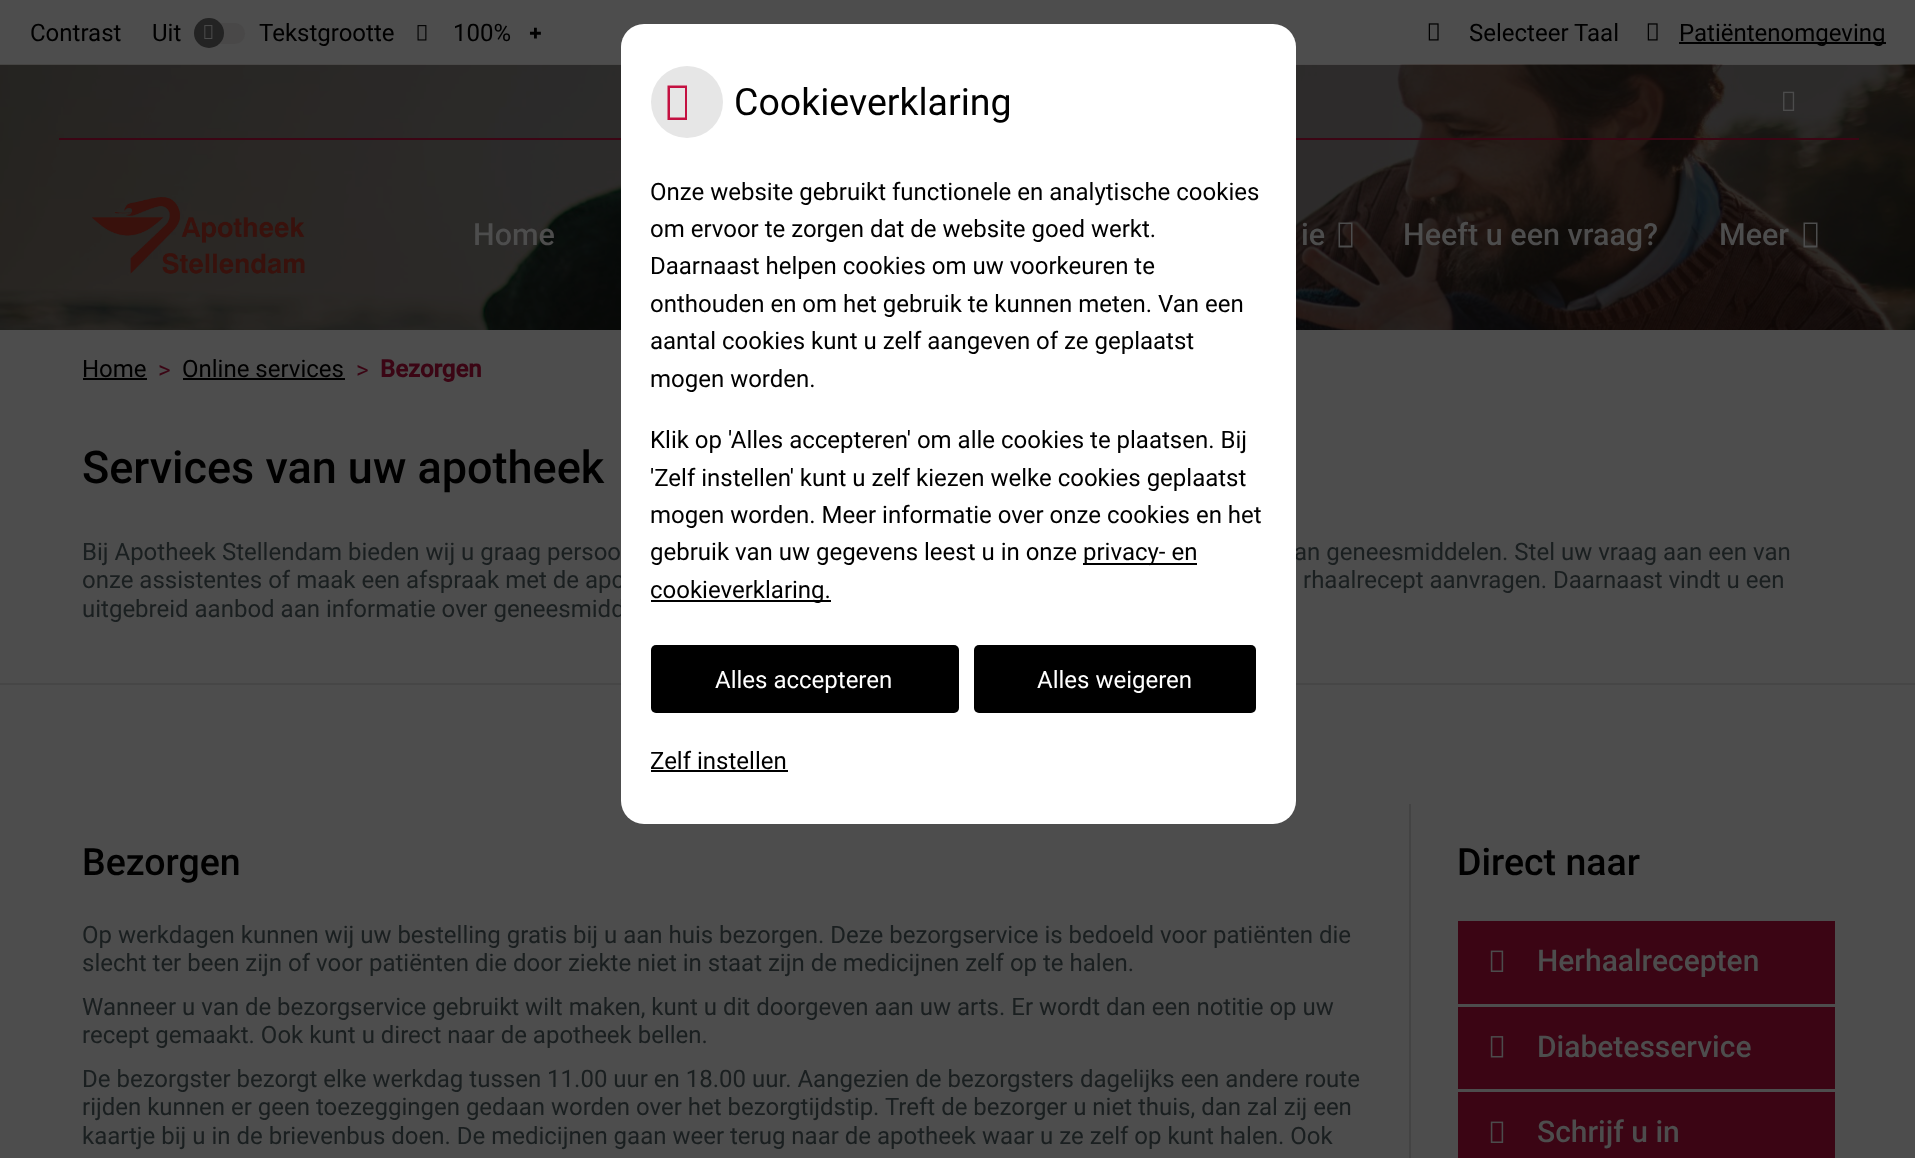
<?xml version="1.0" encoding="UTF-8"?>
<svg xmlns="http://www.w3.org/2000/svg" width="1915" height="1158">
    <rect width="100%" height="100%" fill="#4D4D4D"/>
    <text x="30" y="41" font-family="Roboto" font-size="24" fill="#000000">Contrast</text>
    <text x="152" y="41" font-family="Roboto" font-size="24" fill="#000000">Uit</text>
    <rect x="194" y="23" width="51" height="21" rx="10.5" fill="#494848"/>
    <circle cx="209" cy="33" r="15" fill="#232323"/>
    <image x="204" y="25" width="9" height="14" href="img_01.png"/>
    <text x="259" y="41" font-family="Roboto" font-size="24" fill="#000000">Tekstgrootte</text>
    <image x="417" y="25" width="10" height="16" href="img_02.png"/>
    <text x="453" y="41" font-family="Roboto" font-size="24" fill="#000000">100%</text>
    <text x="529" y="41" font-family="Noto Sans" font-size="22" font-weight="900" fill="#000000">+</text>
    <image x="1428" y="23" width="11" height="18" href="img_03.png"/>
    <text x="1469" y="41" font-family="Roboto" font-size="24" fill="#000000">Selecteer Taal</text>
    <image x="1647" y="23" width="11" height="18" href="img_03.png"/>
    <rect x="1679" y="42" width="207" height="2" fill="#000000"/>
    <text x="1679" y="41" font-family="Roboto" font-size="24" fill="#000000">Patiëntenomgeving</text>
    <image x="0" y="64" width="1915" height="266" href="img_04.png"/>
    <rect x="0" y="65" width="1915" height="75" fill="#000000" fill-opacity="0.4"/>
    <rect x="59" y="138" width="1800" height="2" fill="#3B0514"/>
    <rect x="0" y="140" width="1915" height="190" fill="#000000" fill-opacity="0.4"/>
    <rect x="0" y="683" width="1915" height="2" fill="#464646"/>
    <text x="1294" y="560" font-family="Roboto" font-size="24" fill="#1A1F20">an geneesmiddelen. Stel uw vraag aan een van</text>
    <text font-family="Roboto" font-size="24" fill="#1A1F20">
        <tspan x="82" y="588">onze assistentes of maak een afspraak met de apo</tspan>
        <tspan x="82" y="617">uitgebreid aanbod aan informatie over geneesmidd</tspan>
    </text>
    <rect x="621" y="24" width="675" height="800" rx="23" fill="#FFFFFF"/>
    <circle cx="687" cy="102" r="36" fill="#E6E6E6"/>
    <path d="M 667.5 120 V 85.5 H 687 V 120 Z M 670 117.5 H 685 V 88 H 670 Z" fill="#C41141"/>
    <text x="734" y="115" font-family="Roboto" font-size="37.5" fill="#000000">Cookieverklaring</text>
    <text font-family="Roboto" font-size="24" fill="#000000">
        <tspan x="650" y="200">Onze website gebruikt functionele en analytische cookies</tspan>
        <tspan x="650" y="237">om ervoor te zorgen dat de website goed werkt.</tspan>
        <tspan x="650" y="274">Daarnaast helpen cookies om uw voorkeuren te</tspan>
        <tspan x="650" y="312">onthouden en om het gebruik te kunnen meten. Van een</tspan>
        <tspan x="650" y="349">aantal cookies kunt u zelf aangeven of ze geplaatst</tspan>
        <tspan x="650" y="387">mogen worden.</tspan>
    </text>
    <text font-family="Roboto" font-size="24" fill="#000000">
        <tspan x="650" y="448">Klik op 'Alles accepteren' om alle cookies te plaatsen. Bij</tspan>
        <tspan x="650" y="486">'Zelf instellen' kunt u zelf kiezen welke cookies geplaatst</tspan>
        <tspan x="650" y="523">mogen worden. Meer informatie over onze cookies en het</tspan>
        <tspan x="650" y="560">gebruik van uw gegevens leest u in onze</tspan>
    </text>
    <rect x="1083" y="563" width="114" height="2" fill="#000000"/>
    <text x="1083" y="560" font-family="Roboto" font-size="24" fill="#000000">privacy- en</text>
    <rect x="651" y="600" width="180" height="2" fill="#000000"/>
    <text x="650" y="598" font-family="Roboto" font-size="24" fill="#000000">cookieverklaring.</text>
    <rect x="651" y="645" width="308" height="68" rx="5" fill="#000000"/>
    <text x="715" y="688" font-family="Roboto" font-size="24" fill="#FFFFFF">Alles accepteren</text>
    <rect x="974" y="645" width="282" height="68" rx="5" fill="#000000"/>
    <text x="1037" y="688" font-family="Roboto" font-size="24" fill="#FFFFFF">Alles weigeren</text>
    <text x="650" y="769" font-family="Roboto" font-size="24" fill="#000000">Zelf instellen</text>
    <rect x="651" y="770" width="137" height="2" fill="#000000"/>
    <image x="1783" y="91" width="12" height="20" href="img_05.png"/>
    <image x="92" y="197" width="213" height="77" href="img_06.png"/>
    <text x="473" y="245" font-family="Roboto" font-size="30.5" font-weight="500" fill="#4D4D4D">Home</text>
    <text x="1301" y="245" font-family="Roboto" font-size="30.5" font-weight="500" fill="#4D4D4D">ie</text>
    <path d="M 1338.5 247.5 V 222.5 H 1352.5 V 247.5 Z M 1340 245.5 H 1351 V 224 H 1340 Z" fill="#4D4D4D"/>
    <text x="1403" y="245" font-family="Roboto" font-size="30.5" font-weight="500" fill="#4D4D4D">Heeft u een vraag?</text>
    <text x="1719" y="245" font-family="Roboto" font-size="30.5" font-weight="500" fill="#4D4D4D">Meer</text>
    <path d="M 1803.5 247.5 V 222.5 H 1817.5 V 247.5 Z M 1805 245.5 H 1816 V 224 H 1805 Z" fill="#4D4D4D"/>
    <text x="82" y="377" font-family="Roboto" font-size="24" fill="#000000">Home</text>
    <rect x="83" y="378" width="64" height="2" fill="#000000"/>
    <text x="158" y="378" font-family="Roboto" font-size="24" fill="#3B0514">&gt;</text>
    <text x="182" y="377" font-family="Roboto" font-size="24" fill="#000000">Online services</text>
    <rect x="183" y="378" width="162" height="2" fill="#000000"/>
    <text x="356" y="378" font-family="Roboto" font-size="24" fill="#3B0514">&gt;</text>
    <text x="380" y="377" font-family="Roboto" font-size="24" font-weight="700" fill="#3B0514">Bezorgen</text>
    <text x="82" y="483" font-family="Roboto" font-size="45" font-weight="500" fill="#000000">Services van uw apotheek</text>
    <text x="82" y="560" font-family="Roboto" font-size="24" fill="#1A1F20">Bij Apotheek Stellendam bieden wij u graag persoo</text>
    <text x="1303" y="588" font-family="Roboto" font-size="24" fill="#1A1F20">rhaalrecept aanvragen. Daarnaast vindt u een</text>
    <text x="82" y="875" font-family="Roboto" font-size="37.5" font-weight="500" fill="#000000">Bezorgen</text>
    <text font-family="Roboto" font-size="24" fill="#1A1F20">
        <tspan x="82" y="943">Op werkdagen kunnen wij uw bestelling gratis bij u aan huis bezorgen. Deze bezorgservice is bedoeld voor patiënten die</tspan>
        <tspan x="82" y="971">slecht ter been zijn of voor patiënten die door ziekte niet in staat zijn de medicijnen zelf op te halen.</tspan>
        <tspan x="82" y="1015">Wanneer u van de bezorgservice gebruikt wilt maken, kunt u dit doorgeven aan uw arts. Er wordt dan een notitie op uw</tspan>
        <tspan x="82" y="1043">recept gemaakt. Ook kunt u direct naar de apotheek bellen.</tspan>
        <tspan x="82" y="1087">De bezorgster bezorgt elke werkdag tussen 11.00 uur en 18.00 uur. Aangezien de bezorgsters dagelijks een andere route</tspan>
        <tspan x="82" y="1115">rijden kunnen er geen toezeggingen gedaan worden over het bezorgtijdstip. Treft de bezorger u niet thuis, dan zal zij een</tspan>
        <tspan x="82" y="1144">kaartje bij u in de brievenbus doen. De medicijnen gaan weer terug naar de apotheek waar u ze zelf op kunt halen. Ook</tspan>
    </text>
    <rect x="1409" y="804" width="2" height="354" fill="#434343"/>
    <text x="1457" y="875" font-family="Roboto" font-size="37.5" font-weight="500" fill="#000000">Direct naar</text>
    <rect x="1458" y="921" width="377" height="83" fill="#3B0514"/>
    <image x="1490" y="950" width="14" height="22" href="img_07.png"/>
    <text x="1537" y="971" font-family="Roboto" font-size="30" font-weight="500" fill="#4D4D4D">Herhaalrecepten</text>
    <rect x="1458" y="1007" width="377" height="82" fill="#3B0514"/>
    <image x="1490" y="1036" width="14" height="22" href="img_08.png"/>
    <text x="1537" y="1057" font-family="Roboto" font-size="30" font-weight="500" fill="#4D4D4D">Diabetesservice</text>
    <rect x="1458" y="1092" width="377" height="66" fill="#3B0514"/>
    <image x="1490" y="1121" width="14" height="22" href="img_07.png"/>
    <text x="1537" y="1142" font-family="Roboto" font-size="30" font-weight="500" fill="#4D4D4D">Schrijf u in</text>
</svg>
